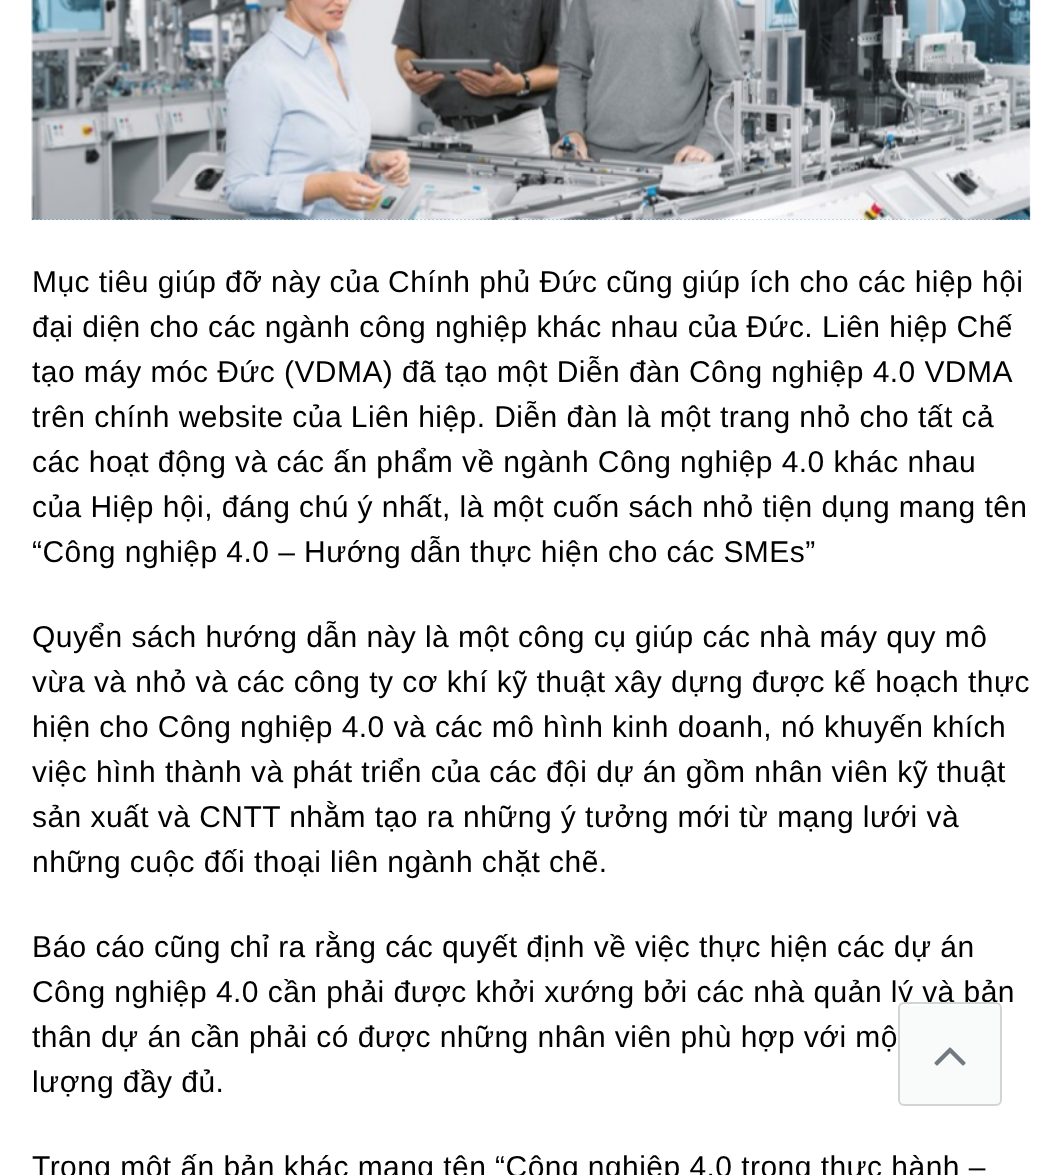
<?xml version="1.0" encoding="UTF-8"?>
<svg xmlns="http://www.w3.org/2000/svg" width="1062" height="1175">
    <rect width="100%" height="100%" fill="#FFFFFF"/>
    <path d="M 32 219 H 1030" fill="none" stroke="#2D9BDB" stroke-width="2" stroke-dasharray="2 2"/>
    <image x="31" y="0" width="1000" height="220" href="img_01.png"/>
    <text font-family="Liberation Sans" font-size="30" letter-spacing="0.45" fill="#000000">
        <tspan x="32" y="292">Mục tiêu giúp đỡ này của Chính phủ Đức cũng giúp ích cho các hiệp hội</tspan>
        <tspan x="32" y="337">đại diện cho các ngành công nghiệp khác nhau của Đức. Liên hiệp Chế</tspan>
        <tspan x="32" y="382" word-spacing="-0.1">tạo máy móc Đức (VDMA) đã tạo một Diễn đàn Công nghiệp 4.0 VDMA</tspan>
        <tspan x="32" y="427">trên chính website của Liên hiệp. Diễn đàn là một trang nhỏ cho tất cả</tspan>
        <tspan x="32" y="472">các hoạt động và các ấn phẩm về ngành Công nghiệp 4.0 khác nhau</tspan>
        <tspan x="32" y="517">của Hiệp hội, đáng chú ý nhất, là một cuốn sách nhỏ tiện dụng mang tên</tspan>
        <tspan x="32" y="562">“Công nghiệp 4.0 – Hướng dẫn thực hiện cho các SMEs”</tspan>
    </text>
    <text font-family="Liberation Sans" font-size="30" letter-spacing="0.45" fill="#000000">
        <tspan x="32" y="647">Quyển sách hướng dẫn này là một công cụ giúp các nhà máy quy mô</tspan>
        <tspan x="32" y="692">vừa và nhỏ và các công ty cơ khí kỹ thuật xây dựng được kế hoạch thực</tspan>
        <tspan x="32" y="737">hiện cho Công nghiệp 4.0 và các mô hình kinh doanh, nó khuyến khích</tspan>
        <tspan x="32" y="782">việc hình thành và phát triển của các đội dự án gồm nhân viên kỹ thuật</tspan>
        <tspan x="32" y="827">sản xuất và CNTT nhằm tạo ra những ý tưởng mới từ mạng lưới và</tspan>
        <tspan x="32" y="872">những cuộc đối thoại liên ngành chặt chẽ.</tspan>
    </text>
    <text font-family="Liberation Sans" font-size="30" letter-spacing="0.45" fill="#000000">
        <tspan x="32" y="957">Báo cáo cũng chỉ ra rằng các quyết định về việc thực hiện các dự án</tspan>
        <tspan x="32" y="1002">Công nghiệp 4.0 cần phải được khởi xướng bởi các nhà quản lý và bản</tspan>
        <tspan x="32" y="1047">thân dự án cần phải có được những nhân viên phù hợp với mộ</tspan>
        <tspan x="32" y="1092">lượng đầy đủ.</tspan>
    </text>
    <text x="32" y="1177" font-family="Liberation Sans" font-size="30" letter-spacing="0.45" fill="#000000">Trong một ấn bản khác mang tên “Công nghiệp 4.0 trong thực hành –</text>
    <rect x="898" y="1002" width="104" height="104" rx="6" fill="#F9FAFA"/>
    <path d="M 904 1006 H 996 C 998 1006 1000 1008 1000 1010 V 1008 C 1000 1006 998 1004 996 1004 H 904 C 902 1004 900 1006 900 1008 V 1010 C 900 1008 902 1006 904 1006 Z" fill="#FFFFFF"/>
    <rect x="899" y="1003" width="102" height="102" rx="5" fill="none" stroke="#D2D5D8" stroke-width="2"/>
    <image x="934" y="1047" width="32" height="19" href="img_02.png"/>
</svg>
